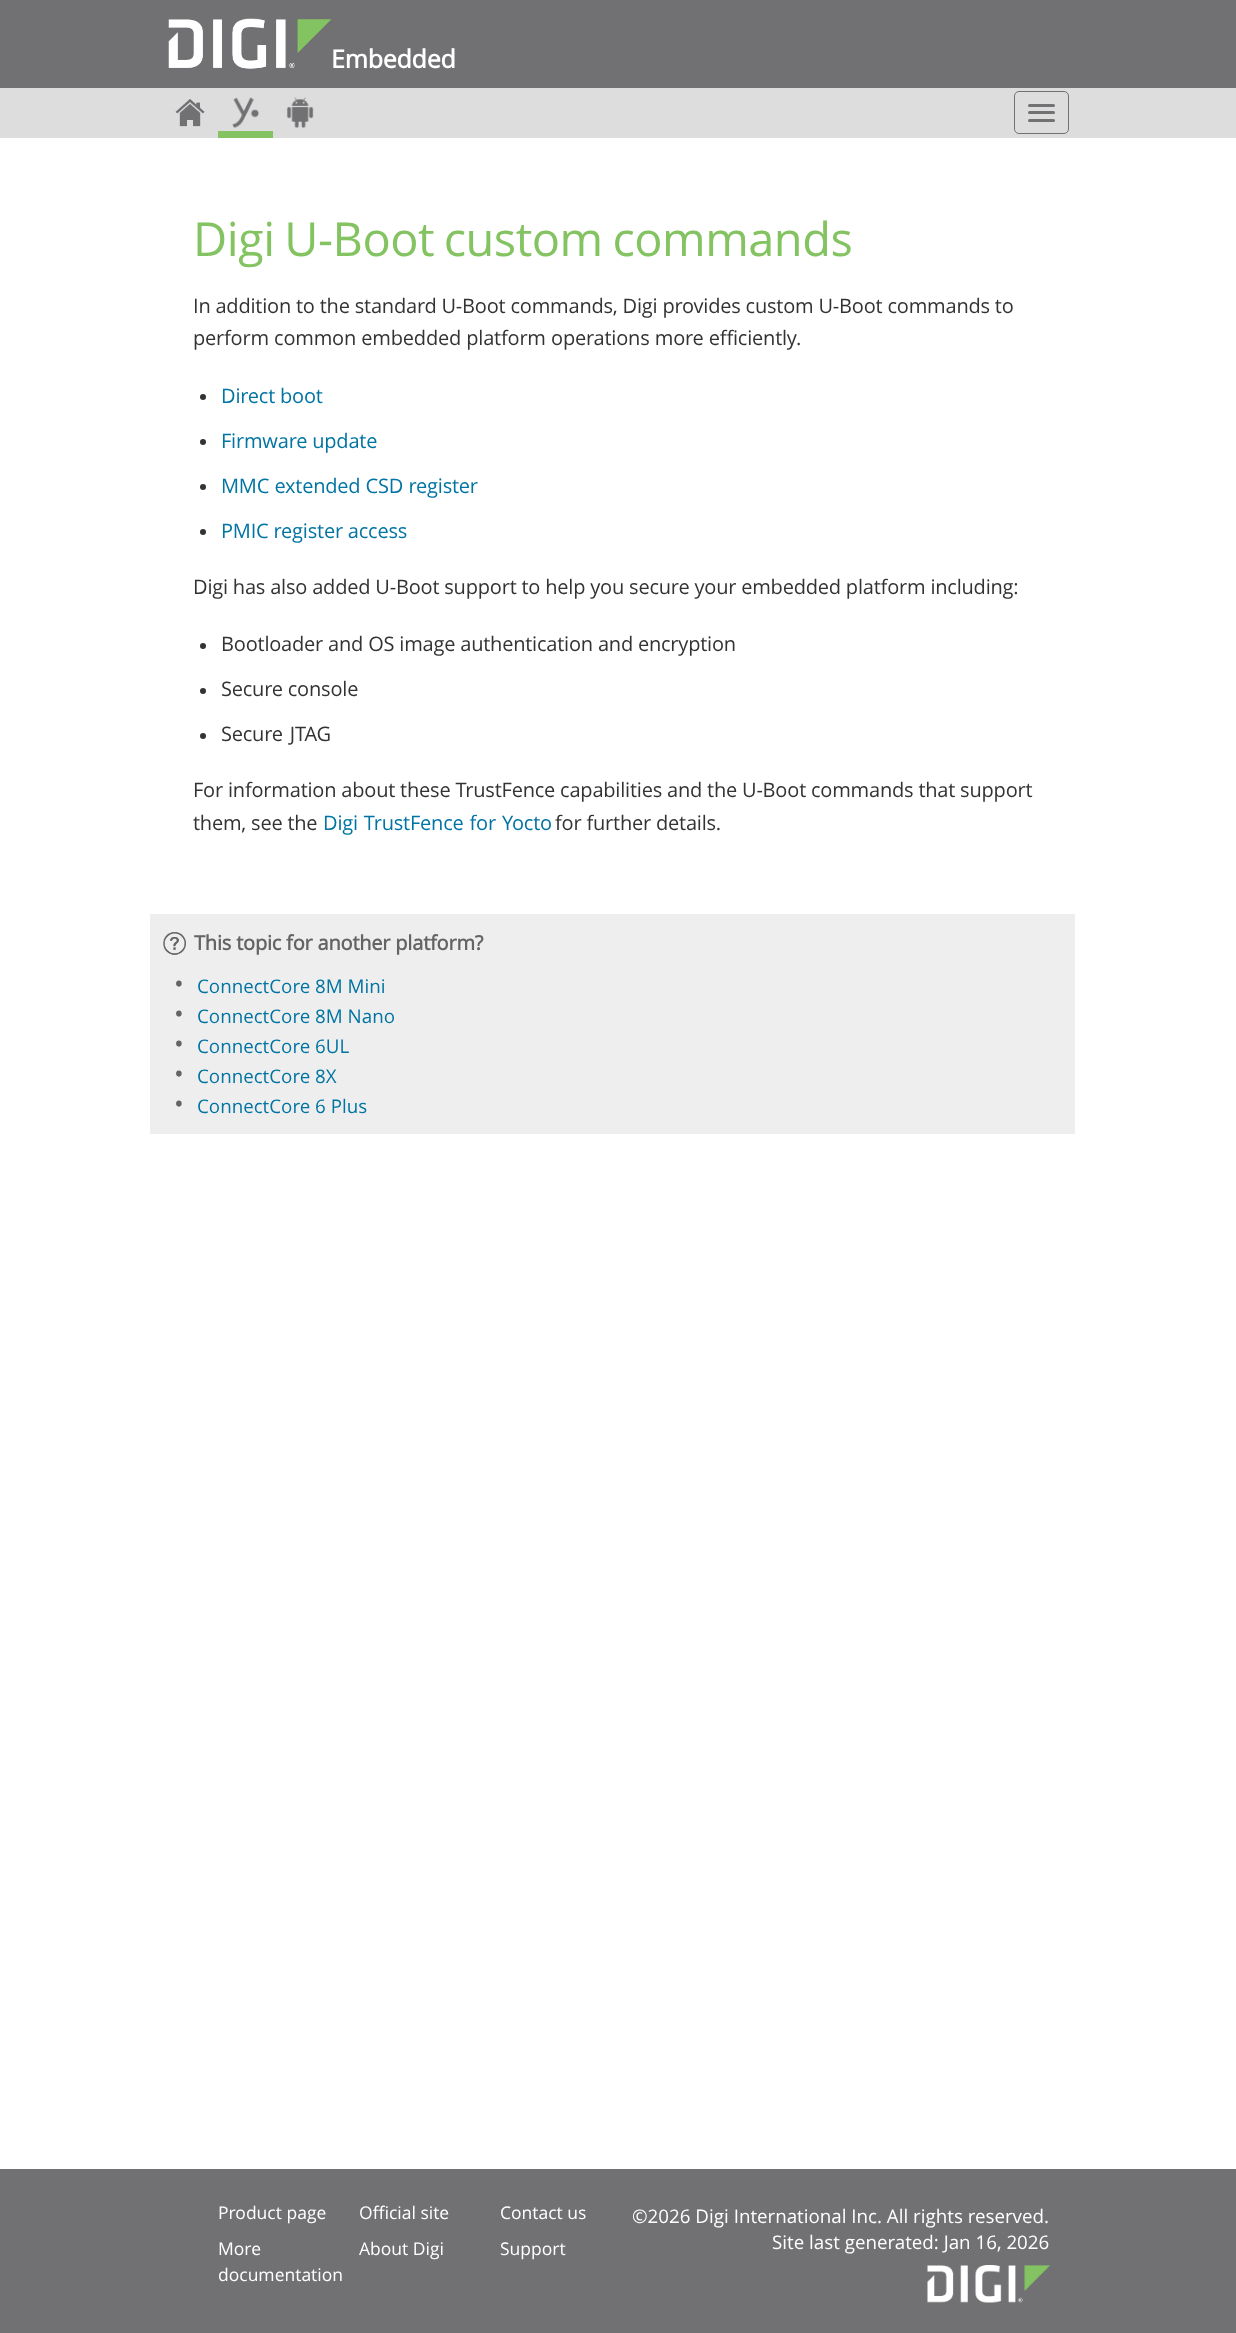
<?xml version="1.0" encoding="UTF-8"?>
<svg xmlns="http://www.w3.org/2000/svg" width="1236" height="2333">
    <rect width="100%" height="100%" fill="#FFFFFF"/>
    <rect x="0" y="0" width="1236" height="88" fill="#717174"/>
    <image x="168" y="18" width="164" height="51" href="img_01.png"/>
    <text x="331" y="68" font-family="Open Sans" font-size="25" font-weight="700" letter-spacing="-0.25" fill="#FFFFFF">Embedded</text>
    <rect x="0" y="88" width="1236" height="50" fill="#DDDDDD"/>
    <image x="175" y="99" width="30" height="28" href="img_02.png"/>
    <image x="232" y="97" width="27" height="31" href="img_03.png"/>
    <rect x="218" y="131" width="55" height="7" fill="#84C361"/>
    <image x="286" y="97" width="28" height="31" href="img_04.png"/>
    <rect x="1014.5" y="91.5" width="54" height="42" rx="4.5" fill="none" stroke="#717174"/>
    <rect x="1028" y="104" width="27" height="3" rx="1.5" fill="#717174"/>
    <rect x="1028" y="111" width="27" height="3" rx="1.5" fill="#717174"/>
    <rect x="1028" y="119" width="27" height="3" rx="1.5" fill="#717174"/>
    <text x="193" y="256" word-spacing="-2" font-family="Open Sans" font-size="46.9" letter-spacing="-0.5" fill="#84C361">Digi U-Boot custom commands</text>
    <text font-family="Open Sans" font-size="20" letter-spacing="-0.2" fill="#333333">
        <tspan x="193" y="313">In addition to the standard U-Boot commands, Digi provides custom U-Boot commands to</tspan>
        <tspan x="193" y="345" word-spacing="0.25">perform common embedded platform operations more efficiently.</tspan>
    </text>
    <circle cx="203" cy="397" r="3" fill="#333333"/>
    <text x="221" y="403" font-family="Open Sans" font-size="20" letter-spacing="-0.2" fill="#0074A2">Direct boot</text>
    <circle cx="203" cy="442" r="3" fill="#333333"/>
    <text x="221" y="448" font-family="Open Sans" font-size="20" letter-spacing="-0.2" fill="#0074A2">Firmware update</text>
    <circle cx="203" cy="487" r="3" fill="#333333"/>
    <text x="221" y="493" word-spacing="0.25" font-family="Open Sans" font-size="20" letter-spacing="-0.2" fill="#0074A2">MMC extended CSD register</text>
    <circle cx="203" cy="532" r="3" fill="#333333"/>
    <text x="221" y="538" font-family="Open Sans" font-size="20" letter-spacing="-0.2" fill="#0074A2">PMIC register access</text>
    <text x="193" y="594" font-family="Open Sans" font-size="20" letter-spacing="-0.2" fill="#333333">Digi has also added U-Boot support to help you secure your embedded platform including:</text>
    <circle cx="203" cy="646" r="3" fill="#333333"/>
    <text x="221" y="651" font-family="Open Sans" font-size="20" letter-spacing="-0.2" fill="#333333">Bootloader and OS image authentication and encryption</text>
    <circle cx="203" cy="691" r="3" fill="#333333"/>
    <text x="221" y="696" font-family="Open Sans" font-size="20" letter-spacing="-0.2" fill="#333333">Secure console</text>
    <circle cx="203" cy="736" r="3" fill="#333333"/>
    <text x="221" y="741" word-spacing="2" font-family="Open Sans" font-size="20" letter-spacing="-0.2" fill="#333333">Secure JTAG</text>
    <text font-family="Open Sans" font-size="20" letter-spacing="-0.2" fill="#333333">
        <tspan x="193" y="797">For information about these TrustFence capabilities and the U-Boot commands that support</tspan>
        <tspan x="193" y="830">them, see the</tspan>
    </text>
    <text x="323" y="830" word-spacing="1" font-family="Open Sans" font-size="20" letter-spacing="-0.2" fill="#0074A2">Digi TrustFence for Yocto</text>
    <text x="555" y="830" font-family="Open Sans" font-size="20" letter-spacing="-0.2" fill="#333333">for further details.</text>
    <rect x="150" y="914" width="925" height="220" fill="#EEEEEE"/>
    <image x="163" y="932" width="23" height="23" href="img_05.png"/>
    <text x="194" y="950" font-family="Open Sans" font-size="20" font-weight="700" letter-spacing="-0.2" fill="#646466">This topic for another platform?</text>
    <text x="174" y="993" font-family="Open Sans" font-size="26" fill="#646466">•</text>
    <text x="197" y="993" font-family="Open Sans" font-size="18.75" fill="#0074A2">ConnectCore 8M Mini</text>
    <text x="174" y="1023" font-family="Open Sans" font-size="26" fill="#646466">•</text>
    <text x="197" y="1023" font-family="Open Sans" font-size="18.75" fill="#0074A2">ConnectCore 8M Nano</text>
    <text x="174" y="1053" font-family="Open Sans" font-size="26" fill="#646466">•</text>
    <text x="197" y="1053" font-family="Open Sans" font-size="18.75" fill="#0074A2">ConnectCore 6UL</text>
    <text x="174" y="1083" font-family="Open Sans" font-size="26" fill="#646466">•</text>
    <text x="197" y="1083" font-family="Open Sans" font-size="18.75" fill="#0074A2">ConnectCore 8X</text>
    <text x="174" y="1113" font-family="Open Sans" font-size="26" fill="#646466">•</text>
    <text x="197" y="1113" font-family="Open Sans" font-size="18.75" fill="#0074A2">ConnectCore 6 Plus</text>
    <rect x="0" y="2169" width="1236" height="164" fill="#717174"/>
    <text x="218" y="2219" font-family="Open Sans" font-size="17.5" fill="#FFFFFF">Product page</text>
    <text x="359" y="2219" font-family="Open Sans" font-size="17.5" fill="#FFFFFF">Official site</text>
    <text x="500" y="2219" font-family="Open Sans" font-size="17.5" fill="#FFFFFF">Contact us</text>
    <text font-family="Open Sans" font-size="17.5" fill="#FFFFFF">
        <tspan x="218" y="2255">More</tspan>
        <tspan x="218" y="2281">documentation</tspan>
    </text>
    <text x="359" y="2255" font-family="Open Sans" font-size="17.5" fill="#FFFFFF">About Digi</text>
    <text x="500" y="2255" font-family="Open Sans" font-size="17.5" fill="#FFFFFF">Support</text>
    <text x="632" y="2223" font-family="Open Sans" font-size="18.75" fill="#FFFFFF">©2026 Digi International Inc. All rights reserved.</text>
    <text x="772" y="2249" font-family="Open Sans" font-size="18.75" fill="#FFFFFF">Site last generated: Jan 16, 2026</text>
    <image x="927" y="2265" width="123" height="38" href="img_06.png"/>
</svg>
